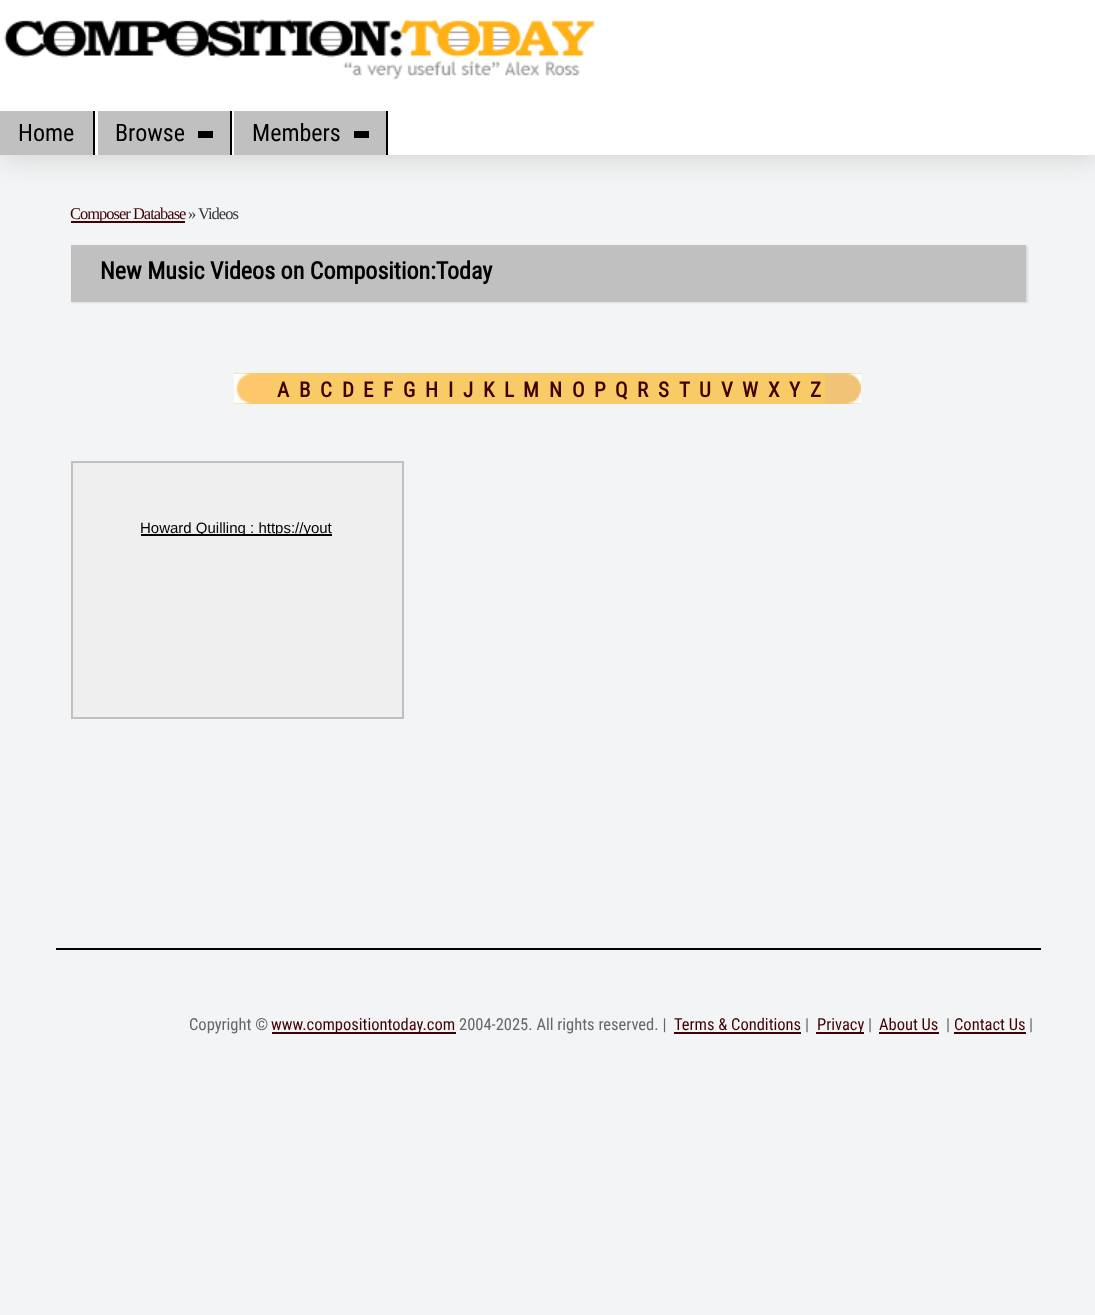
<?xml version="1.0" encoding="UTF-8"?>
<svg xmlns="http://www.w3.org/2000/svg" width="1095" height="1315">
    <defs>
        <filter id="blur1" x="-50%" y="-200%" width="200%" height="500%"><feGaussianBlur stdDeviation="15"/></filter>
        <filter id="blur2" x="-50%" y="-200%" width="200%" height="500%"><feGaussianBlur stdDeviation="1"/></filter>
    </defs>
    <rect width="100%" height="100%" fill="#F3F4F5"/>
    <rect x="2" y="2" width="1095" height="154" fill="#CCCCCC" filter="url(#blur1)"/>
    <rect x="0" y="0" width="1095" height="155" fill="#FFFFFF"/>
    <image x="4" y="19" width="591" height="61" href="img_01.png"/>
    <rect x="0" y="111" width="93" height="44" fill="#C0C0C0"/>
    <rect x="93" y="111" width="2" height="44" fill="#000000"/>
    <text x="18" y="141" font-family="Roboto Condensed" font-size="24" fill="#000000">Home</text>
    <rect x="98" y="111" width="132" height="44" fill="#C0C0C0"/>
    <rect x="230" y="111" width="2" height="44" fill="#000000"/>
    <text x="115" y="141" font-family="Roboto Condensed" font-size="24" fill="#000000">Browse</text>
    <rect x="198" y="131" width="15" height="7" fill="#000000"/>
    <rect x="234" y="111" width="152" height="44" fill="#C0C0C0"/>
    <rect x="386" y="111" width="2" height="44" fill="#000000"/>
    <text x="252" y="141" font-family="Roboto Condensed" font-size="24" fill="#000000">Members</text>
    <rect x="354" y="131" width="15" height="7" fill="#000000"/>
    <rect x="71" y="221" width="114" height="2" fill="#420203"/>
    <text x="70" y="219" font-family="Liberation Serif" font-size="16.5" letter-spacing="-1" fill="#420203">Composer Database</text>
    <text x="188" y="219" font-family="Liberation Serif" font-size="16.5" letter-spacing="-1" fill="#363636">» Videos</text>
    <rect x="72" y="246" width="956" height="57" fill="#DADADA" filter="url(#blur2)"/>
    <rect x="71" y="245" width="955" height="57" fill="#C0C0C0"/>
    <text x="100" y="279" font-family="Roboto Condensed" font-size="24" font-weight="700" fill="#000000">New Music Videos on Composition:Today</text>
    <rect x="234" y="373" width="627" height="31" fill="#F8CB66"/>
    <image x="234" y="373" width="39" height="31" href="img_02.png"/>
    <text x="277" y="397" font-family="Roboto Condensed" font-size="21" font-weight="700" fill="#420203">A</text>
    <text x="299" y="397" font-family="Roboto Condensed" font-size="21" font-weight="700" fill="#420203">B</text>
    <text x="320" y="397" font-family="Roboto Condensed" font-size="21" font-weight="700" fill="#420203">C</text>
    <text x="342" y="397" font-family="Roboto Condensed" font-size="21" font-weight="700" fill="#420203">D</text>
    <text x="363" y="397" font-family="Roboto Condensed" font-size="21" font-weight="700" fill="#420203">E</text>
    <text x="383" y="397" font-family="Roboto Condensed" font-size="21" font-weight="700" fill="#420203">F</text>
    <text x="403" y="397" font-family="Roboto Condensed" font-size="21" font-weight="700" fill="#420203">G</text>
    <text x="425" y="397" font-family="Roboto Condensed" font-size="21" font-weight="700" fill="#420203">H</text>
    <text x="448" y="397" font-family="Roboto Condensed" font-size="21" font-weight="700" fill="#420203">I</text>
    <text x="463" y="397" font-family="Roboto Condensed" font-size="21" font-weight="700" fill="#420203">J</text>
    <text x="483" y="397" font-family="Roboto Condensed" font-size="21" font-weight="700" fill="#420203">K</text>
    <text x="504" y="397" font-family="Roboto Condensed" font-size="21" font-weight="700" fill="#420203">L</text>
    <text x="523" y="397" font-family="Roboto Condensed" font-size="21" font-weight="700" fill="#420203">M</text>
    <text x="549" y="397" font-family="Roboto Condensed" font-size="21" font-weight="700" fill="#420203">N</text>
    <text x="572" y="397" font-family="Roboto Condensed" font-size="21" font-weight="700" fill="#420203">O</text>
    <text x="594" y="397" font-family="Roboto Condensed" font-size="21" font-weight="700" fill="#420203">P</text>
    <text x="615" y="397" font-family="Roboto Condensed" font-size="21" font-weight="700" fill="#420203">Q</text>
    <text x="637" y="397" font-family="Roboto Condensed" font-size="21" font-weight="700" fill="#420203">R</text>
    <text x="658" y="397" font-family="Roboto Condensed" font-size="21" font-weight="700" fill="#420203">S</text>
    <text x="679" y="397" font-family="Roboto Condensed" font-size="21" font-weight="700" fill="#420203">T</text>
    <text x="699" y="397" font-family="Roboto Condensed" font-size="21" font-weight="700" fill="#420203">U</text>
    <text x="721" y="397" font-family="Roboto Condensed" font-size="21" font-weight="700" fill="#420203">V</text>
    <text x="742" y="397" font-family="Roboto Condensed" font-size="21" font-weight="700" fill="#420203">W</text>
    <text x="768" y="397" font-family="Roboto Condensed" font-size="21" font-weight="700" fill="#420203">X</text>
    <text x="789" y="397" font-family="Roboto Condensed" font-size="21" font-weight="700" fill="#420203">Y</text>
    <text x="810" y="397" font-family="Roboto Condensed" font-size="21" font-weight="700" fill="#420203">Z</text>
    <image x="825" y="373" width="36" height="31" href="img_03.png"/>
    <rect x="72" y="462" width="331" height="256" fill="#EFEFEF" stroke="#C0C0C0" stroke-width="2"/>
    <rect x="141" y="534" width="191" height="2" fill="#000000"/>
    <text x="140" y="533" font-family="Liberation Sans" font-size="15" fill="#000000">Howard Quilling : https://yout</text>
    <rect x="56" y="948" width="985" height="2" fill="#000000"/>
    <text x="189" y="1030" font-family="Roboto Condensed" font-size="16.5" fill="#666666">Copyright ©</text>
    <rect x="272" y="1032" width="184" height="2" fill="#420203"/>
    <text x="271" y="1030" font-family="Roboto Condensed" font-size="16.5" fill="#420203">www.compositiontoday.com</text>
    <text x="459" y="1030" font-family="Roboto Condensed" font-size="16.5" fill="#666666">2004-2025. All rights reserved. |</text>
    <text x="674" y="1030" font-family="Roboto Condensed" font-size="16.5" fill="#420203">Terms &amp; Conditions</text>
    <rect x="674" y="1032" width="127" height="2" fill="#420203"/>
    <text x="805" y="1030" font-family="Roboto Condensed" font-size="16.5" fill="#666666">|</text>
    <rect x="816" y="1032" width="48" height="2" fill="#420203"/>
    <text x="817" y="1030" font-family="Roboto Condensed" font-size="16.5" fill="#420203">Privacy</text>
    <text x="868" y="1030" font-family="Roboto Condensed" font-size="16.5" fill="#666666">|</text>
    <text x="879" y="1030" font-family="Roboto Condensed" font-size="16.5" fill="#420203">About Us</text>
    <rect x="879" y="1032" width="60" height="2" fill="#420203"/>
    <text x="946" y="1030" font-family="Roboto Condensed" font-size="16.5" fill="#666666">|</text>
    <text x="954" y="1030" font-family="Roboto Condensed" font-size="16.5" fill="#420203">Contact Us</text>
    <rect x="954" y="1032" width="72" height="2" fill="#420203"/>
    <text x="1029" y="1030" font-family="Roboto Condensed" font-size="16.5" fill="#666666">|</text>
</svg>
